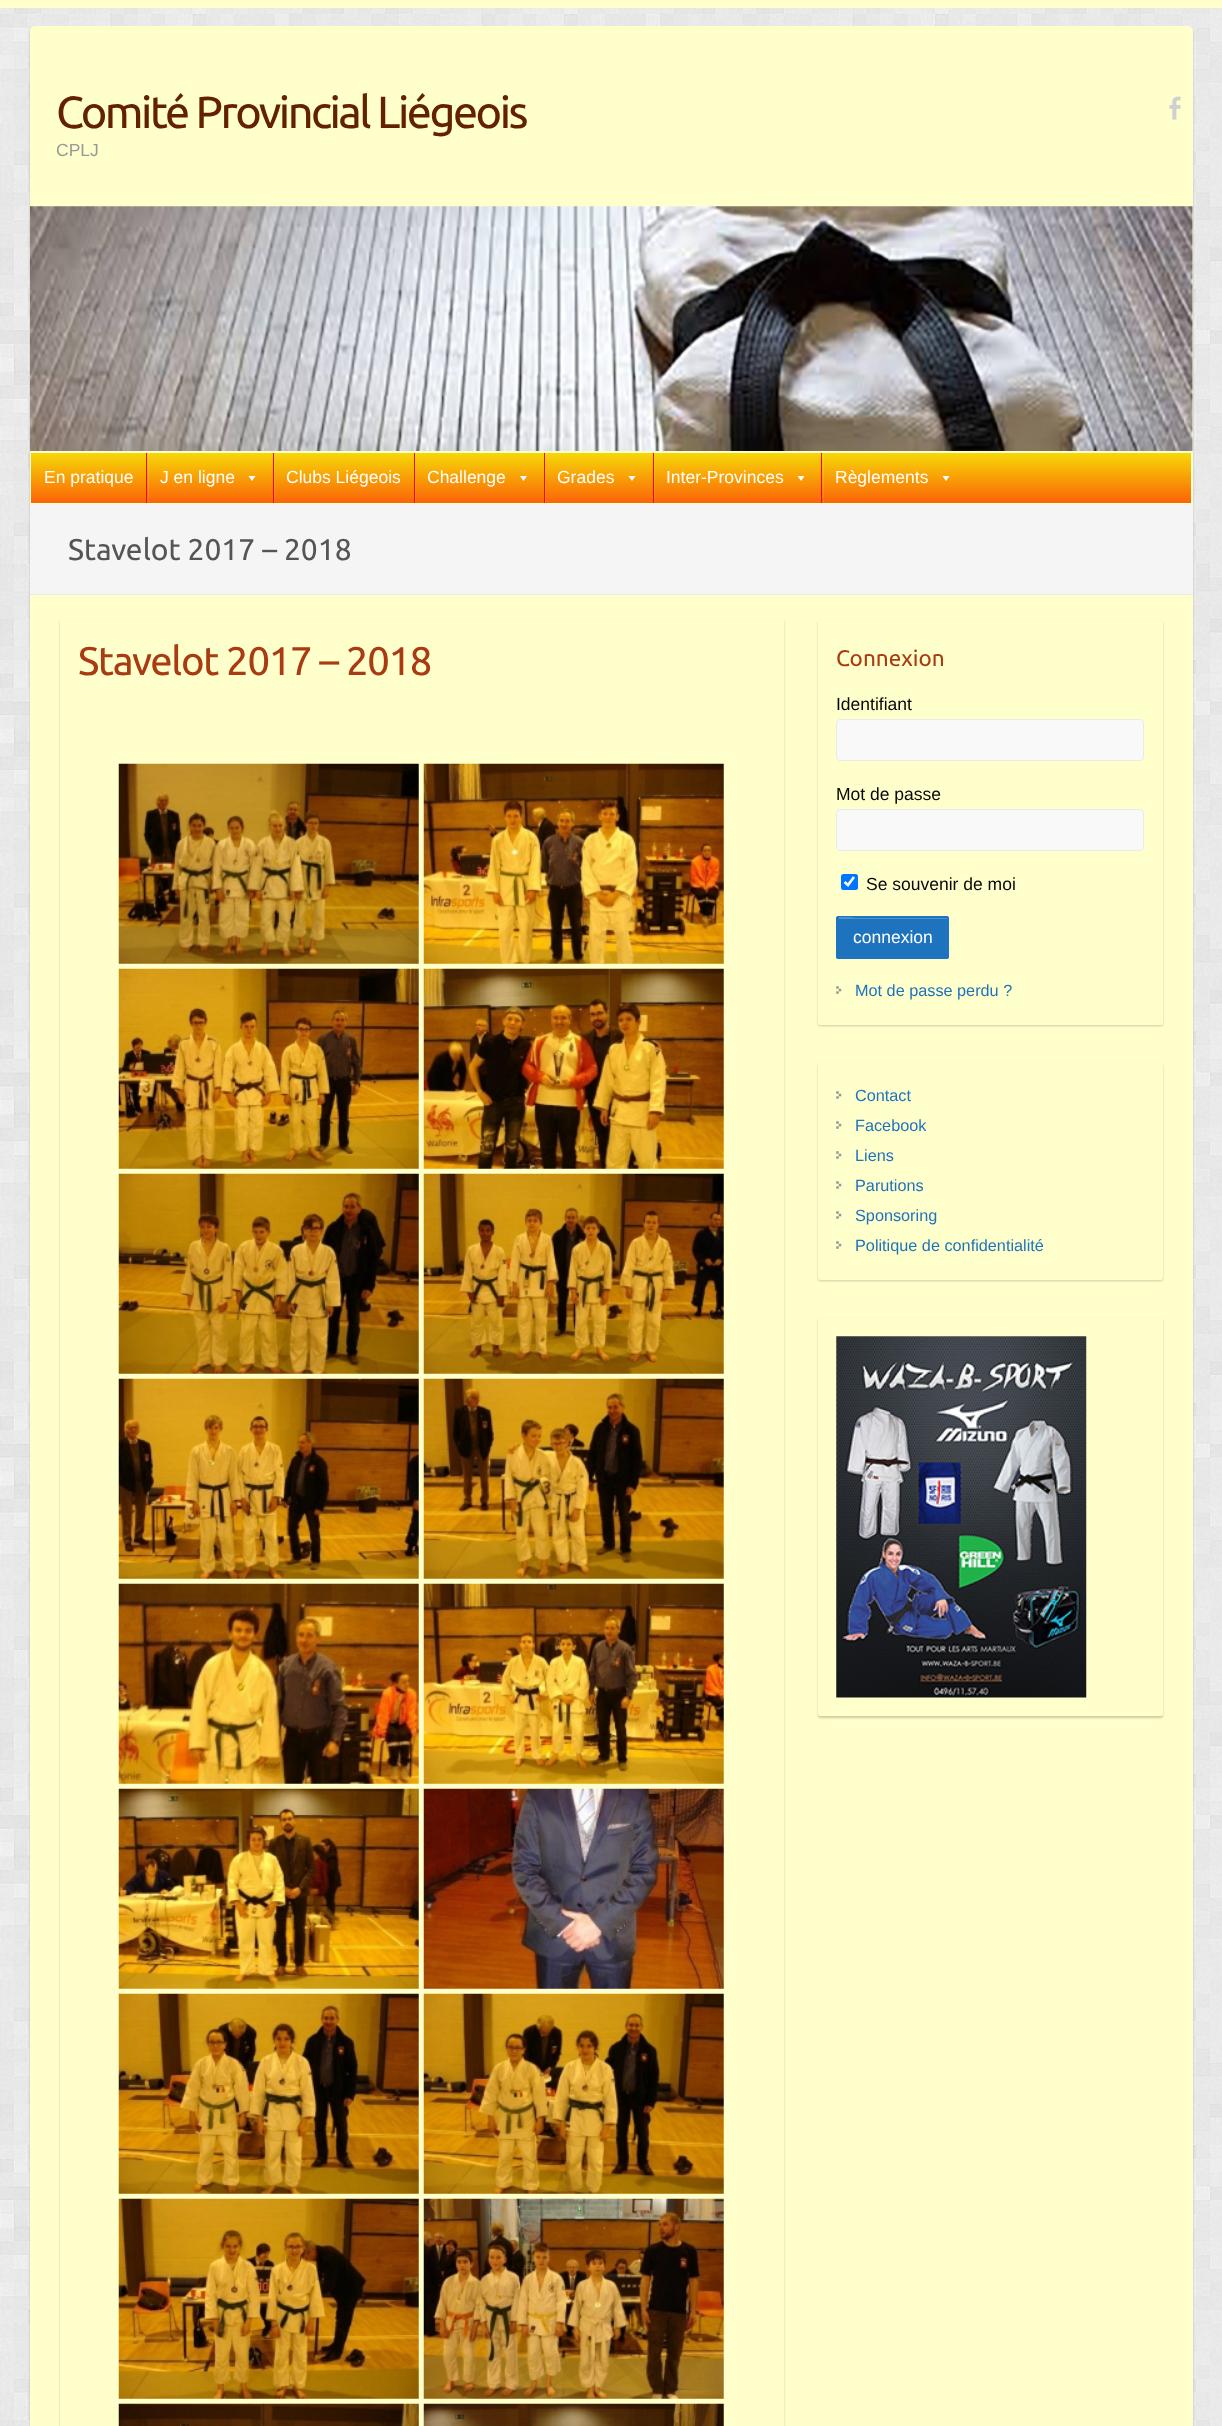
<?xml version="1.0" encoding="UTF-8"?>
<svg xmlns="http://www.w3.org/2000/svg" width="1222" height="2426">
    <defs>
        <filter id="blur1" x="-50%" y="-200%" width="200%" height="500%"><feGaussianBlur stdDeviation="1"/></filter>
        <linearGradient id="g1" gradientUnits="userSpaceOnUse" x1="611" y1="452" x2="611" y2="503"><stop offset="0" stop-color="#F6DA07"/><stop offset="1" stop-color="#FB6407"/></linearGradient>
    </defs>
    <rect width="100%" height="100%" fill="#FFFFFF"/>
    <image x="0" y="8" width="1222" height="2418" href="img_01.png"/>
    <rect x="0" y="0" width="1222" height="8" fill="#FFFFCC"/>
    <rect x="30" y="28" width="1163" height="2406" rx="5" fill="#000000" fill-opacity="0.2" filter="url(#blur1)"/>
    <rect x="30" y="26" width="1163" height="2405" rx="5" fill="#FFFFCC"/>
    <text x="56" y="128" font-family="Ubuntu" font-size="45" letter-spacing="-2.5" fill="#642100">Comité Provincial Liégeois</text>
    <text x="56" y="156" font-family="Liberation Sans" font-size="17.5" fill="#999999">CPLJ</text>
    <image x="1169" y="96" width="12" height="24" href="img_02.png"/>
    <image x="30" y="206" width="1163" height="245" href="img_03.png"/>
    <rect x="31" y="453" width="1160" height="50" fill="url(#g1)"/>
    <text x="44" y="483" font-family="Liberation Sans" font-size="17.5" fill="#FFFFFF">En pratique</text>
    <rect x="148" y="453" width="1" height="50" fill="#FFFFFF" fill-opacity="0.1"/>
    <rect x="146" y="453" width="1" height="50" fill="#F90606"/>
    <text x="160" y="483" font-family="Liberation Sans" font-size="17.5" fill="#FFFFFF">J en ligne</text>
    <path d="M 255.5 476 L 252 481 L 248.5 476 Z" fill="#FFFFFF"/>
    <rect x="274" y="453" width="1" height="50" fill="#FFFFFF" fill-opacity="0.1"/>
    <rect x="273" y="453" width="1" height="50" fill="#F90606"/>
    <text x="286" y="483" font-family="Liberation Sans" font-size="17.5" fill="#FFFFFF">Clubs Liégeois</text>
    <rect x="415" y="453" width="1" height="50" fill="#FFFFFF" fill-opacity="0.1"/>
    <rect x="414" y="453" width="1" height="50" fill="#F90606"/>
    <text x="427" y="483" font-family="Liberation Sans" font-size="17.5" fill="#FFFFFF">Challenge</text>
    <path d="M 527 476 L 523.5 481 L 520 476 Z" fill="#FFFFFF"/>
    <rect x="545" y="453" width="1" height="50" fill="#FFFFFF" fill-opacity="0.1"/>
    <rect x="544" y="453" width="1" height="50" fill="#F90606"/>
    <text x="557" y="483" font-family="Liberation Sans" font-size="17.5" fill="#FFFFFF">Grades</text>
    <path d="M 635.5 476 L 632 481 L 628.5 476 Z" fill="#FFFFFF"/>
    <rect x="654" y="453" width="1" height="50" fill="#FFFFFF" fill-opacity="0.1"/>
    <rect x="653" y="453" width="1" height="50" fill="#F90606"/>
    <text x="666" y="483" font-family="Liberation Sans" font-size="17.5" fill="#FFFFFF">Inter-Provinces</text>
    <path d="M 804.5 476 L 801 481 L 797.5 476 Z" fill="#FFFFFF"/>
    <rect x="823" y="453" width="1" height="50" fill="#FFFFFF" fill-opacity="0.1"/>
    <rect x="821" y="453" width="1" height="50" fill="#F90606"/>
    <text x="835" y="483" font-family="Liberation Sans" font-size="17.5" fill="#FFFFFF">Règlements</text>
    <path d="M 949.5 476 L 946 481 L 942.5 476 Z" fill="#FFFFFF"/>
    <rect x="30" y="504" width="1163" height="90" fill="#F5F5F5"/>
    <rect x="30" y="594" width="1163" height="1" fill="#EAEAEA"/>
    <text x="68" y="560" font-family="Ubuntu" font-size="30" fill="#555555">Stavelot 2017 – 2018</text>
    <rect x="60" y="621" width="724" height="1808" fill="#000000" fill-opacity="0.2" filter="url(#blur1)"/>
    <rect x="60" y="620" width="724" height="1806" fill="#FFFFCC"/>
    <text x="78" y="675" font-family="Ubuntu" font-size="40" letter-spacing="-1.25" fill="#AA3A11">Stavelot 2017 – 2018</text>
    <image x="118" y="763" width="301" height="201" href="img_04.png"/>
    <image x="423" y="763" width="301" height="201" href="img_05.png"/>
    <image x="118" y="968" width="301" height="201" href="img_06.png"/>
    <image x="423" y="968" width="301" height="201" href="img_07.png"/>
    <image x="118" y="1173" width="301" height="201" href="img_08.png"/>
    <image x="423" y="1173" width="301" height="201" href="img_09.png"/>
    <image x="118" y="1378" width="301" height="201" href="img_10.png"/>
    <image x="423" y="1378" width="301" height="201" href="img_11.png"/>
    <image x="118" y="1583" width="301" height="201" href="img_12.png"/>
    <image x="423" y="1583" width="301" height="201" href="img_13.png"/>
    <image x="118" y="1788" width="301" height="201" href="img_14.png"/>
    <image x="423" y="1788" width="301" height="201" href="img_15.png"/>
    <image x="118" y="1993" width="301" height="201" href="img_16.png"/>
    <image x="423" y="1993" width="301" height="201" href="img_17.png"/>
    <image x="118" y="2198" width="301" height="201" href="img_18.png"/>
    <image x="423" y="2198" width="301" height="201" href="img_19.png"/>
    <image x="118" y="2403" width="301" height="23" href="img_20.png"/>
    <image x="423" y="2403" width="301" height="23" href="img_21.png"/>
    <rect x="818" y="621" width="345" height="405" rx="2.5" fill="#000000" fill-opacity="0.2" filter="url(#blur1)"/>
    <rect x="818" y="620" width="345" height="405" rx="2.5" fill="#FFFFCC"/>
    <text x="836" y="666" font-family="Ubuntu" font-size="22.5" fill="#AA3A11">Connexion</text>
    <text x="836" y="710" font-family="Liberation Sans" font-size="17.5" fill="#070707">Identifiant</text>
    <rect x="836.5" y="719.5" width="307" height="41" rx="3.5" fill="#F9F9F9" stroke="#EAEAEA"/>
    <text x="836" y="800" font-family="Liberation Sans" font-size="17.5" fill="#070707">Mot de passe</text>
    <rect x="836.5" y="809.5" width="307" height="41" rx="3.5" fill="#F9F9F9" stroke="#EAEAEA"/>
    <rect x="841" y="874" width="17" height="16" rx="2.5" fill="#0075FF"/>
    <path d="M 844.5 882 L 848 885 L 854 877" fill="none" stroke="#FFFFFF" stroke-width="2.6"/>
    <text x="866" y="890" font-family="Liberation Sans" font-size="17.5" fill="#070707">Se souvenir de moi</text>
    <rect x="836" y="916" width="113" height="43" rx="2.5" fill="#1E73BE"/>
    <path d="M 839 919 H 946 C 947 919 948 919 948 920 L 947 918 H 857 C 853 918 838 913 838 920 C 838 919 838 919 839 919 Z" fill="#4B8FCB"/>
    <rect x="836.5" y="916.5" width="112" height="42" rx="2" fill="none" stroke="#1E73BE"/>
    <text x="853" y="943" font-family="Liberation Sans" font-size="17.5" fill="#FFFFFF">connexion</text>
    <image x="836" y="986" width="6" height="8" href="img_22.png"/>
    <text x="855" y="996" font-family="Liberation Sans" font-size="16.25" fill="#1E73BE">Mot de passe perdu ?</text>
    <rect x="818" y="1064" width="345" height="217" rx="2.5" fill="#000000" fill-opacity="0.2" filter="url(#blur1)"/>
    <rect x="818" y="1063" width="345" height="217" rx="2.5" fill="#FFFFCC"/>
    <image x="836" y="1091" width="6" height="8" href="img_22.png"/>
    <text x="855" y="1101" font-family="Liberation Sans" font-size="16.25" fill="#1E73BE">Contact</text>
    <image x="836" y="1121" width="6" height="8" href="img_22.png"/>
    <text x="855" y="1131" font-family="Liberation Sans" font-size="16.25" fill="#1E73BE">Facebook</text>
    <image x="836" y="1151" width="6" height="8" href="img_22.png"/>
    <text x="855" y="1161" font-family="Liberation Sans" font-size="16.25" fill="#1E73BE">Liens</text>
    <image x="836" y="1181" width="6" height="8" href="img_22.png"/>
    <text x="855" y="1191" font-family="Liberation Sans" font-size="16.25" fill="#1E73BE">Parutions</text>
    <image x="836" y="1211" width="6" height="8" href="img_22.png"/>
    <text x="855" y="1221" font-family="Liberation Sans" font-size="16.25" fill="#1E73BE">Sponsoring</text>
    <image x="836" y="1241" width="6" height="8" href="img_22.png"/>
    <text x="855" y="1251" font-family="Liberation Sans" font-size="16.25" fill="#1E73BE">Politique de confidentialité</text>
    <rect x="818" y="1319" width="345" height="399" rx="2.5" fill="#000000" fill-opacity="0.2" filter="url(#blur1)"/>
    <rect x="818" y="1318" width="345" height="398" rx="2.5" fill="#FFFFCC"/>
    <image x="836" y="1336" width="251" height="362" href="img_23.png"/>
</svg>
